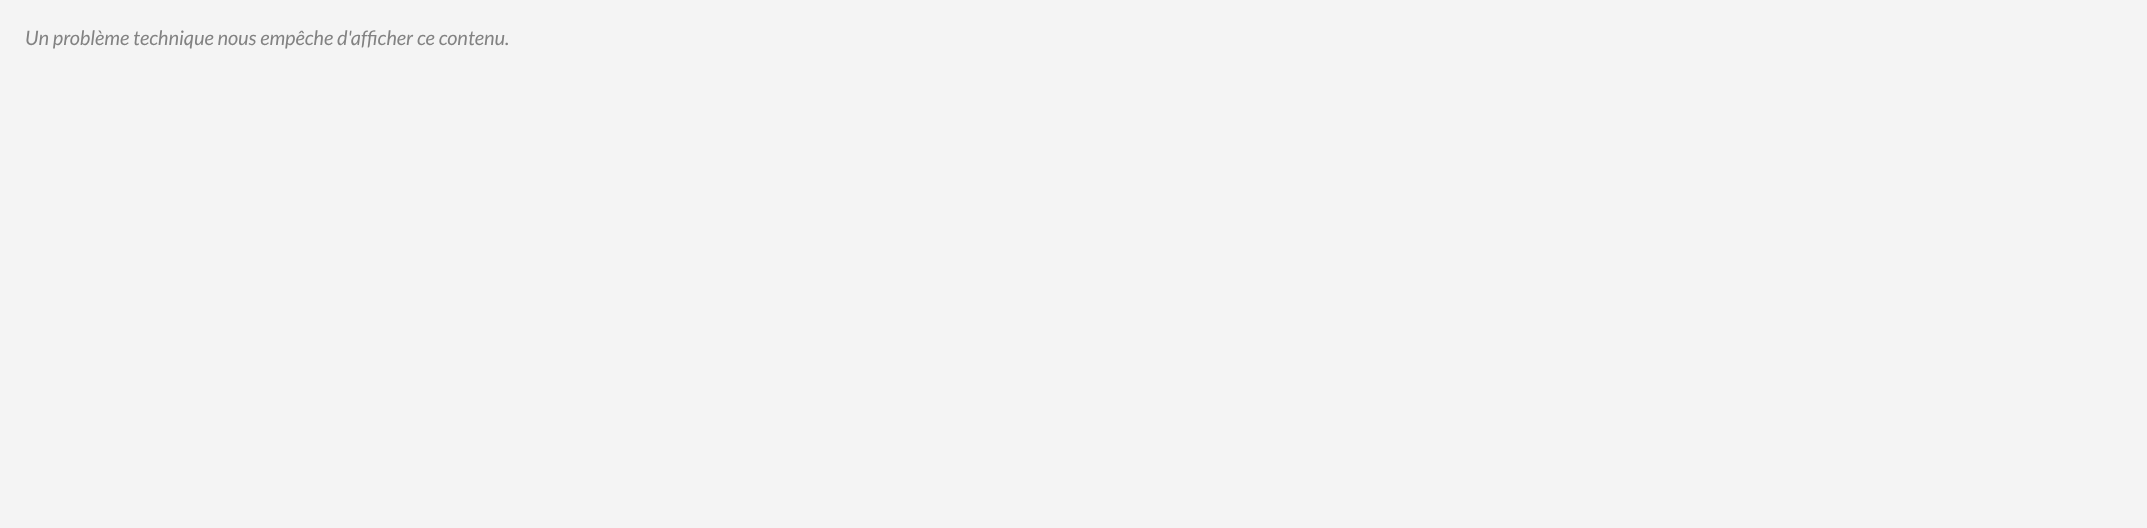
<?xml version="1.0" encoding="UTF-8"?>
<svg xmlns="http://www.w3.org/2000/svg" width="2147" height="528">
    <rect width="100%" height="100%" fill="#F4F4F4"/>
    <text x="25" y="45" font-family="Lato" font-size="20" font-style="italic" fill="#828282">Un problème technique nous empêche d'afficher ce contenu.</text>
</svg>
